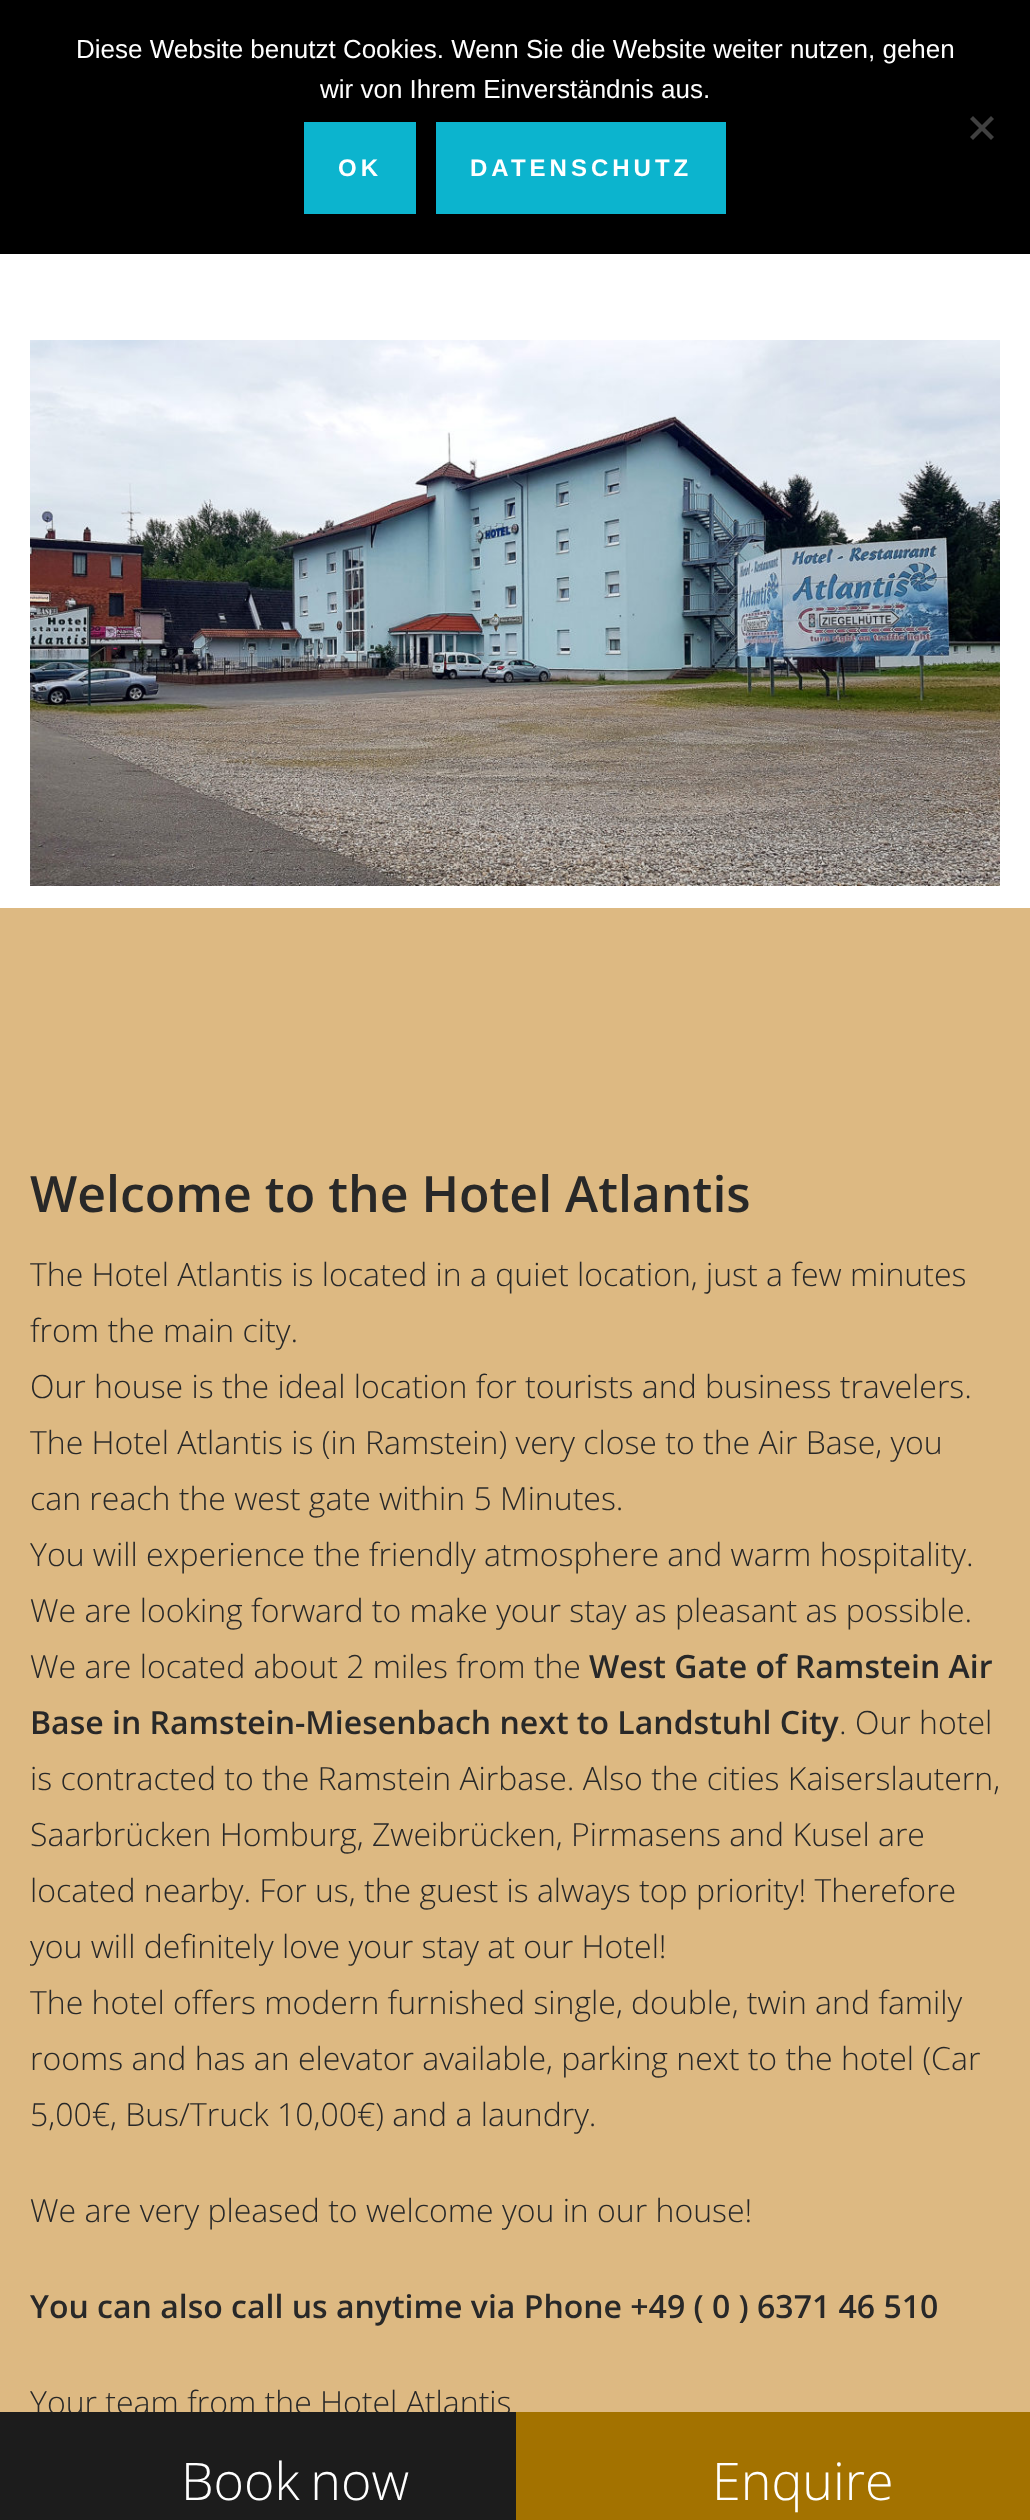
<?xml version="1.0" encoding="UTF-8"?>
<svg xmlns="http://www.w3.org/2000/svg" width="1030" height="2520">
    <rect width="100%" height="100%" fill="#FFFFFF"/>
    <rect x="0" y="0" width="1030" height="254" fill="#000000"/>
    <text x="76" y="58" font-family="Liberation Sans" font-size="26" fill="#FFFFFF">Diese Website benutzt Cookies. Wenn Sie die Website weiter nutzen, gehen</text>
    <text x="320" y="98" font-family="Liberation Sans" font-size="26" fill="#FFFFFF">wir von Ihrem Einverständnis aus.</text>
    <path d="M 991 116 L 994 119 L 973 140 L 970 137 Z" fill="#404040"/>
    <path d="M 970 119 L 973 116 L 994 137 L 991 140 Z" fill="#404040"/>
    <rect x="304" y="122" width="112" height="92" fill="#0CB4CE"/>
    <text x="338" y="176" font-family="Liberation Sans" font-size="24" font-weight="700" letter-spacing="4" fill="#FFFFFF">OK</text>
    <rect x="436" y="122" width="290" height="92" fill="#0CB4CE"/>
    <text x="470" y="176" font-family="Liberation Sans" font-size="24" font-weight="700" letter-spacing="4" fill="#FFFFFF">DATENSCHUTZ</text>
    <image x="30" y="340" width="970" height="546" href="img_01.png"/>
    <rect x="0" y="908" width="1030" height="1504" fill="#DDB982"/>
    <text x="30" y="1212" font-family="Open Sans" font-size="50" font-weight="600" fill="#282828">Welcome to the Hotel Atlantis</text>
    <text font-family="Open Sans" font-size="32" font-weight="300" fill="#282828">
        <tspan x="30" y="1286">The Hotel Atlantis is located in a quiet location, just a few minutes</tspan>
        <tspan x="30" y="1342">from the main city.</tspan>
        <tspan x="30" y="1398">Our house is the ideal location for tourists and business travelers.</tspan>
        <tspan x="30" y="1454">The Hotel Atlantis is (in Ramstein) very close to the Air Base, you</tspan>
        <tspan x="30" y="1510">can reach the west gate within 5 Minutes.</tspan>
        <tspan x="30" y="1566">You will experience the friendly atmosphere and warm hospitality.</tspan>
        <tspan x="30" y="1622">We are looking forward to make your stay as pleasant as possible.</tspan>
        <tspan x="30" y="1678">We are located about 2 miles from the</tspan>
    </text>
    <text x="589" y="1678" font-family="Open Sans" font-size="32" font-weight="600" fill="#282828">West Gate of Ramstein Air</text>
    <text x="30" y="1734" font-family="Open Sans" font-size="32" font-weight="600" fill="#282828">Base in Ramstein-Miesenbach next to Landstuhl City</text>
    <text x="839" y="1734" font-family="Open Sans" font-size="32" font-weight="300" fill="#282828">. Our hotel</text>
    <text font-family="Open Sans" font-size="32" font-weight="300" fill="#282828">
        <tspan x="30" y="1790">is contracted to the Ramstein Airbase. Also the cities Kaiserslautern,</tspan>
        <tspan x="30" y="1846">Saarbrücken Homburg, Zweibrücken, Pirmasens and Kusel are</tspan>
        <tspan x="30" y="1902">located nearby. For us, the guest is always top priority! Therefore</tspan>
        <tspan x="30" y="1958">you will definitely love your stay at our Hotel!</tspan>
        <tspan x="30" y="2014">The hotel offers modern furnished single, double, twin and family</tspan>
        <tspan x="30" y="2070">rooms and has an elevator available, parking next to the hotel (Car</tspan>
        <tspan x="30" y="2126">5,00€, Bus/Truck 10,00€) and a laundry.</tspan>
    </text>
    <text x="30" y="2222" font-family="Open Sans" font-size="32" font-weight="300" fill="#282828">We are very pleased to welcome you in our house!</text>
    <text x="30" y="2318" font-family="Open Sans" font-size="32" font-weight="600" fill="#282828">You can also call us anytime via Phone +49 ( 0 ) 6371 46 510</text>
    <text x="30" y="2414" font-family="Open Sans" font-size="32" font-weight="300" fill="#282828">Your team from the Hotel Atlantis</text>
    <rect x="0" y="2412" width="516" height="108" fill="#1C1C1C"/>
    <text x="181" y="2500" word-spacing="-3" font-family="Open Sans" font-size="52" font-weight="300" fill="#FFFFFF">Book now</text>
    <rect x="516" y="2412" width="514" height="108" fill="#A37200"/>
    <text x="712" y="2500" font-family="Open Sans" font-size="52" font-weight="300" fill="#FFFFFF">Enquire</text>
</svg>
